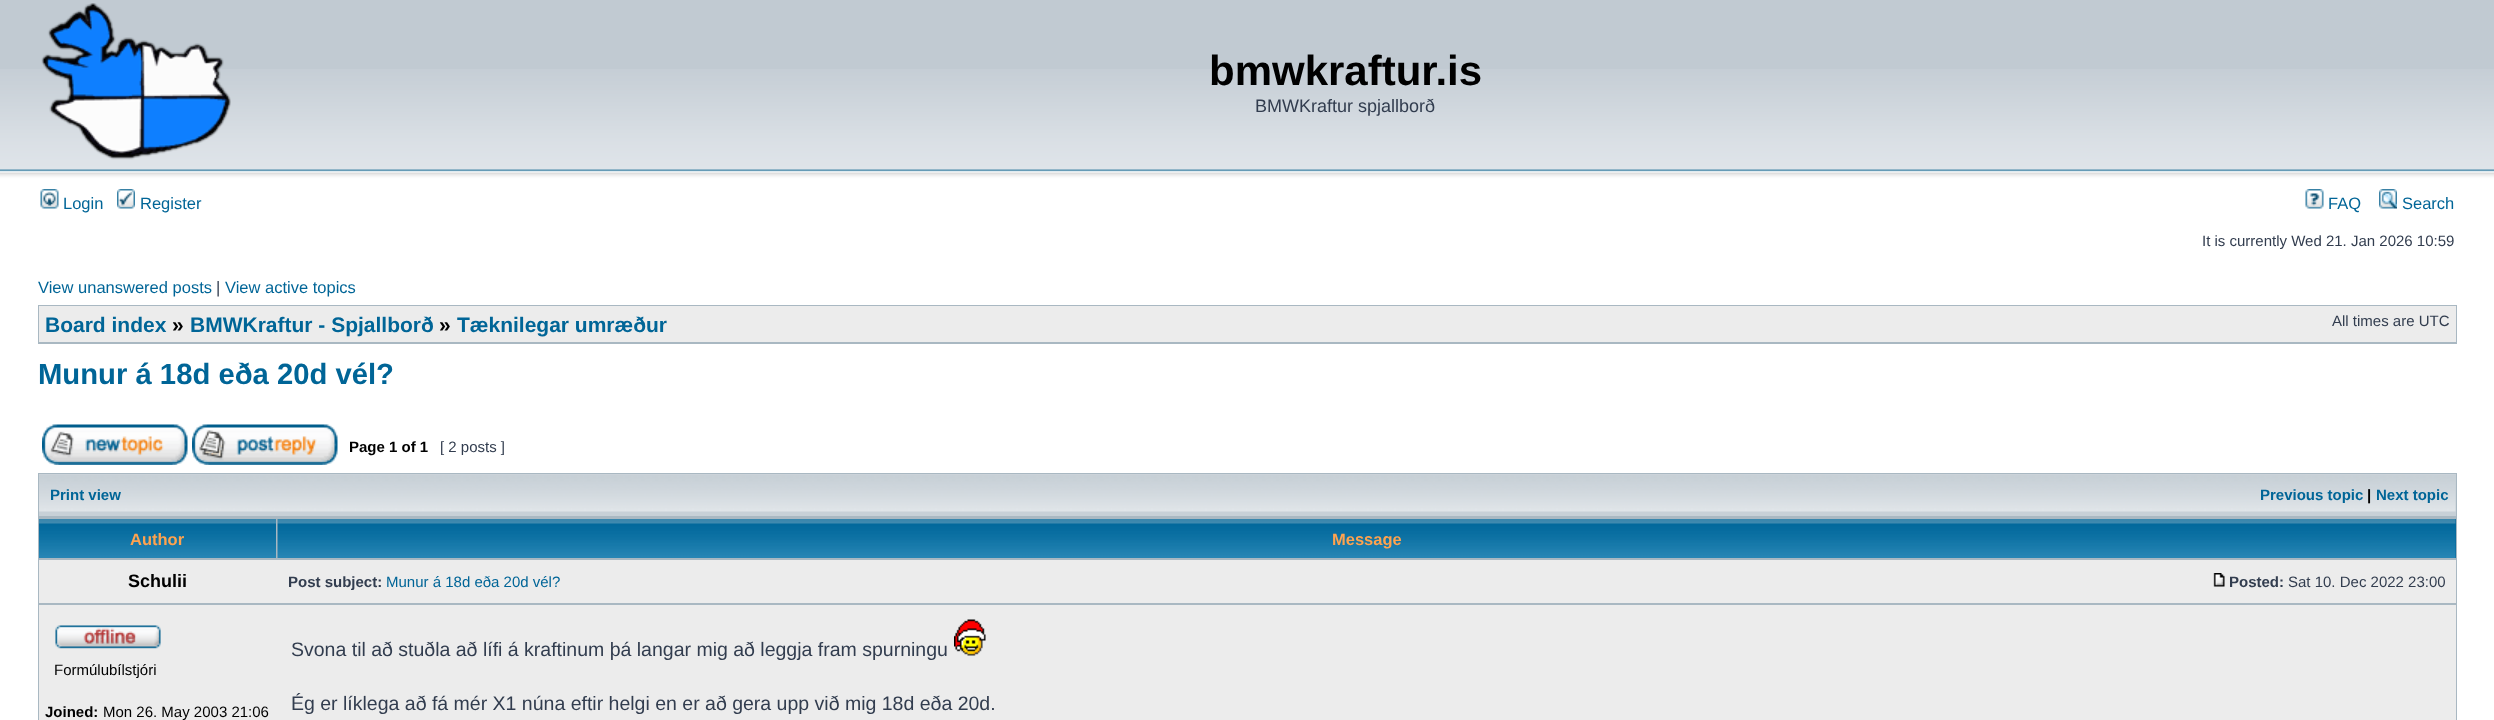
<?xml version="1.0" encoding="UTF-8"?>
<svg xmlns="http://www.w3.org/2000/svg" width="2494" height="720">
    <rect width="100%" height="100%" fill="#FFFFFF"/>
    <rect x="0" y="0" width="2494" height="69" fill="#C1CAD2"/>
    <image x="0" y="69" width="2494" height="117" href="img_01.png"/>
    <image x="41" y="3" width="190" height="157" href="img_02.png"/>
    <text x="1209" y="85" font-family="Liberation Sans" font-size="42" font-weight="700" fill="#000000">bmwkraftur.is</text>
    <text x="1255" y="112" font-family="Liberation Sans" font-size="18" fill="#323D4F">BMWKraftur spjallborð</text>
    <image x="40" y="189" width="19" height="20" href="img_03.png"/>
    <text x="63" y="209" font-family="Liberation Sans" font-size="16.5" fill="#006597">Login</text>
    <image x="117" y="189" width="18" height="20" href="img_04.png"/>
    <text x="140" y="209" font-family="Liberation Sans" font-size="16.5" fill="#006597">Register</text>
    <image x="2305" y="189" width="19" height="20" href="img_05.png"/>
    <text x="2328" y="209" font-family="Liberation Sans" font-size="16.5" fill="#006597">FAQ</text>
    <image x="2379" y="189" width="18" height="20" href="img_06.png"/>
    <text x="2402" y="209" font-family="Liberation Sans" font-size="16.5" fill="#006597">Search</text>
    <text x="2202" y="246" font-family="Liberation Sans" font-size="15" fill="#323D4F">It is currently Wed 21. Jan 2026 10:59</text>
    <text x="38" y="293" font-family="Liberation Sans" font-size="16.5" fill="#006597">View unanswered posts</text>
    <text x="216" y="293" font-family="Liberation Sans" font-size="16.5" fill="#323D4F">|</text>
    <text x="225" y="293" font-family="Liberation Sans" font-size="16.5" fill="#006597">View active topics</text>
    <rect x="38" y="305" width="2419" height="39" fill="#A9B8C2"/>
    <rect x="39" y="306" width="2417" height="36" fill="#ECECEC"/>
    <text x="45" y="332" font-family="Liberation Sans" font-size="21" font-weight="700" fill="#006597">Board index</text>
    <text x="172" y="332" font-family="Liberation Sans" font-size="21" font-weight="700" fill="#000000">»</text>
    <text x="190" y="332" font-family="Liberation Sans" font-size="21" font-weight="700" fill="#006597">BMWKraftur - Spjallborð</text>
    <text x="439" y="332" font-family="Liberation Sans" font-size="21" font-weight="700" fill="#000000">»</text>
    <text x="457" y="332" font-family="Liberation Sans" font-size="21" font-weight="700" fill="#006597">Tæknilegar umræður</text>
    <text x="2332" y="326" font-family="Liberation Sans" font-size="15" fill="#323D4F">All times are UTC</text>
    <text x="38" y="384" font-family="Liberation Sans" font-size="29.25" font-weight="700" fill="#006597">Munur á 18d eða 20d vél?</text>
    <image x="42" y="424" width="146" height="41" href="img_07.png"/>
    <image x="192" y="424" width="146" height="41" href="img_08.png"/>
    <text x="349" y="452" font-family="Liberation Sans" font-size="15" font-weight="700" fill="#000000">Page 1 of 1</text>
    <text x="440" y="452" font-family="Liberation Sans" font-size="15" fill="#323D4F">[ 2 posts ]</text>
    <rect x="38" y="473" width="2419" height="247" fill="#A9B8C2"/>
    <rect x="39" y="474" width="2417" height="42" fill="#C7D0D7"/>
    <image x="39" y="474" width="2417" height="38" href="img_09.png"/>
    <text x="50" y="500" font-family="Liberation Sans" font-size="15" font-weight="700" fill="#006597">Print view</text>
    <text x="2260" y="500" font-family="Liberation Sans" font-size="15" font-weight="700" fill="#006597">Previous topic</text>
    <text x="2367" y="500" font-family="Liberation Sans" font-size="15" font-weight="700" fill="#000000">|</text>
    <text x="2376" y="500" font-family="Liberation Sans" font-size="15" font-weight="700" fill="#006597">Next topic</text>
    <image x="39" y="519" width="237" height="39" href="img_10.png"/>
    <text x="130" y="545" font-family="Liberation Sans" font-size="16.5" font-weight="700" fill="#FFA34F">Author</text>
    <rect x="2455" y="519" width="1" height="39" fill="#006699"/>
    <image x="277" y="519" width="2179" height="39" href="img_11.png"/>
    <text x="1332" y="545" font-family="Liberation Sans" font-size="16.5" font-weight="700" fill="#FFA34F">Message</text>
    <rect x="39" y="560" width="2417" height="43" fill="#ECECEC"/>
    <text x="128" y="587" font-family="Liberation Sans" font-size="18" font-weight="700" fill="#000000">Schulii</text>
    <text x="288" y="587" font-family="Liberation Sans" font-size="15" font-weight="700" fill="#323D4F">Post subject:</text>
    <text x="386" y="587" font-family="Liberation Sans" font-size="15" fill="#006597">Munur á 18d eða 20d vél?</text>
    <image x="2213" y="573" width="12" height="14" href="img_12.png"/>
    <text x="2229" y="587" font-family="Liberation Sans" font-size="15" font-weight="700" fill="#323D4F">Posted:</text>
    <text x="2288" y="587" font-family="Liberation Sans" font-size="15" fill="#323D4F">Sat 10. Dec 2022 23:00</text>
    <rect x="39" y="605" width="2417" height="115" fill="#ECECEC"/>
    <image x="55" y="625" width="106" height="24" href="img_13.png"/>
    <text x="54" y="675" font-family="Liberation Sans" font-size="15" fill="#000000">Formúlubílstjóri</text>
    <text x="45" y="717" font-family="Liberation Sans" font-size="15" font-weight="700" fill="#000000">Joined:</text>
    <text x="103" y="717" font-family="Liberation Sans" font-size="15" fill="#000000">Mon 26. May 2003 21:06</text>
    <text x="291" y="656" font-family="Liberation Sans" font-size="19.5" fill="#323D4F">Svona til að stuðla að lífi á kraftinum þá langar mig að leggja fram spurningu</text>
    <image x="954" y="619" width="32" height="37" href="img_14.png"/>
    <text x="291" y="710" font-family="Liberation Sans" font-size="19.5" fill="#323D4F">Ég er líklega að fá mér X1 núna eftir helgi en er að gera upp við mig 18d eða 20d.</text>
</svg>
